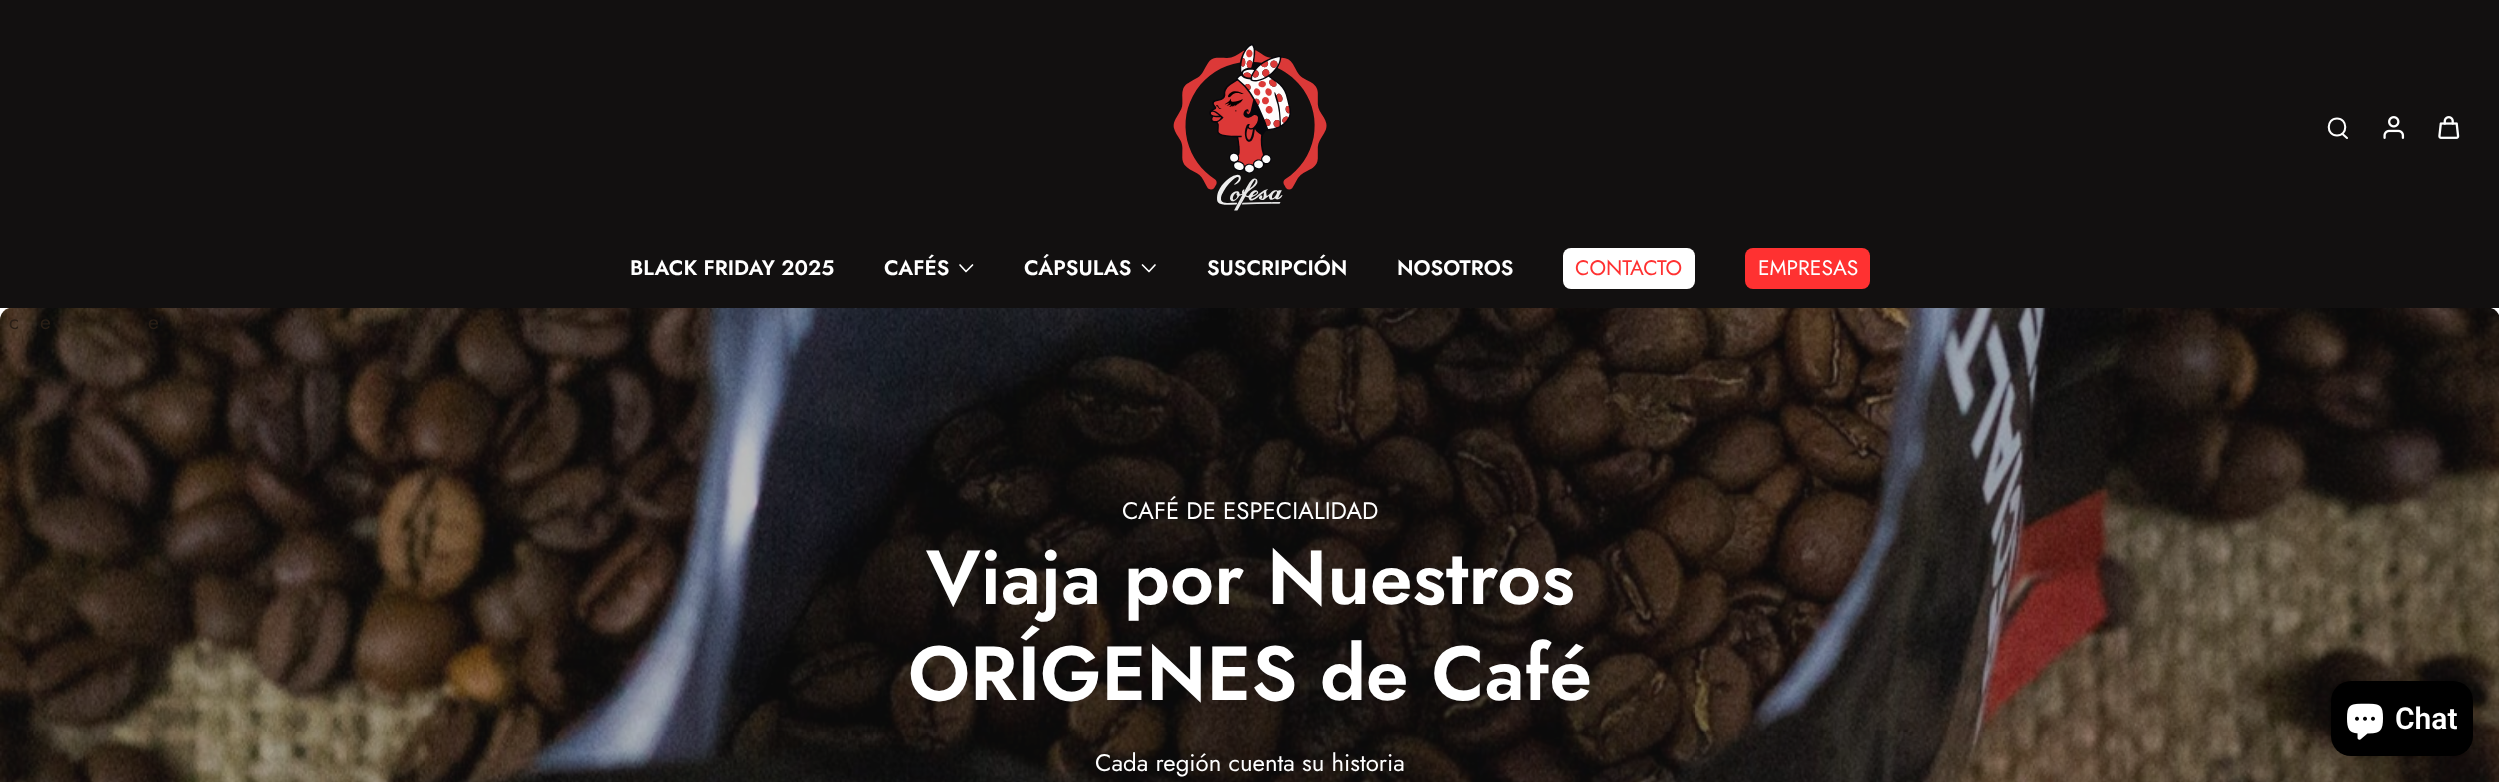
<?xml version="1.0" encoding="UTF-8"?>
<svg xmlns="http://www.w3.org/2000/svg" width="2499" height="782">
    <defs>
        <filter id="blur1" x="-50%" y="-200%" width="200%" height="500%"><feGaussianBlur stdDeviation="3"/></filter>
    </defs>
    <rect width="100%" height="100%" fill="#FFFFFF"/>
    <rect x="0" y="0" width="2499" height="308" fill="#121010"/>
    <image x="1173" y="43" width="154" height="168" href="img_01.png"/>
    <path d="M 2337 135.5 C 2348 135.5 2348 118.5 2337 118.5 C 2326 118.5 2326 135.5 2337 135.5 Z" fill="none" stroke="#FFFFFF" stroke-width="2.1"/>
    <path d="M 2342.5 134 L 2347 138" fill="none" stroke="#FFFFFF" stroke-width="2.1" stroke-linecap="round"/>
    <image x="2383" y="116" width="22" height="23" href="img_02.png"/>
    <image x="2438" y="116" width="22" height="23" href="img_03.png"/>
    <text x="630" y="275" font-family="Jost" font-size="21" font-weight="600" fill="#FFFFFF">BLACK FRIDAY 2025</text>
    <text x="884" y="275" font-family="Jost" font-size="21" font-weight="600" fill="#FFFFFF">CAFÉS</text>
    <path d="M 960 265 L 966 271.5 L 972.5 265" fill="none" stroke="#FFFFFF" stroke-width="1.7" stroke-linecap="round" stroke-linejoin="round"/>
    <text x="1024" y="275" font-family="Jost" font-size="21" font-weight="600" fill="#FFFFFF">CÁPSULAS</text>
    <path d="M 1142.5 265 L 1149 271.5 L 1155 265" fill="none" stroke="#FFFFFF" stroke-width="1.7" stroke-linecap="round" stroke-linejoin="round"/>
    <text x="1207" y="275" font-family="Jost" font-size="21" font-weight="600" fill="#FFFFFF">SUSCRIPCIÓN</text>
    <text x="1397" y="275" font-family="Jost" font-size="21" font-weight="600" fill="#FFFFFF">NOSOTROS</text>
    <rect x="1563" y="248" width="132" height="41" rx="8" fill="#FFFFFF"/>
    <text x="1575" y="275" font-family="Jost" font-size="21" fill="#FF3131">CONTACTO</text>
    <rect x="1745" y="248" width="125" height="41" rx="8" fill="#FF3131"/>
    <text x="1758" y="275" font-family="Jost" font-size="21" fill="#FFFFFF">EMPRESAS</text>
    <image x="0" y="308" width="2499" height="474" href="img_04.png"/>
    <rect x="0" y="308" width="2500" height="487" rx="13" fill="#202020" fill-opacity="0.3"/>
    <text x="9" y="329" font-family="Jost" font-size="21" fill="#2A1F16">c</text>
    <text x="40" y="329" font-family="Jost" font-size="21" fill="#2A1F16">e</text>
    <text x="148" y="329" font-family="Jost" font-size="21" fill="#2A1F16">e</text>
    <text x="1122" y="519" font-family="Jost" font-size="24" fill="#FFFFFF">CAFÉ DE ESPECIALIDAD</text>
    <text x="926" y="604" font-family="Jost" font-size="76.5" font-weight="600" fill="#FFFFFF">Viaja por Nuestros</text>
    <text x="908" y="700" font-family="Jost" font-size="76.5" font-weight="600" fill="#FFFFFF">ORÍGENES</text>
    <text x="1320" y="700" font-family="Jost" font-size="76.5" font-weight="600" fill="#FFFFFF">de Café</text>
    <text x="1095" y="771" font-family="Jost" font-size="24" fill="#FFFFFF">Cada región cuenta su historia</text>
    <rect x="2331" y="681" width="142" height="75" rx="20" fill="#000000" fill-opacity="0.15" filter="url(#blur1)"/>
    <rect x="2331" y="681" width="142" height="75" rx="20" fill="#000000"/>
    <image x="2347" y="703" width="36" height="37" href="img_05.png"/>
    <text x="2395" y="729" font-family="Roboto" font-size="30" font-weight="600" fill="#FFFFFF">Chat</text>
</svg>
